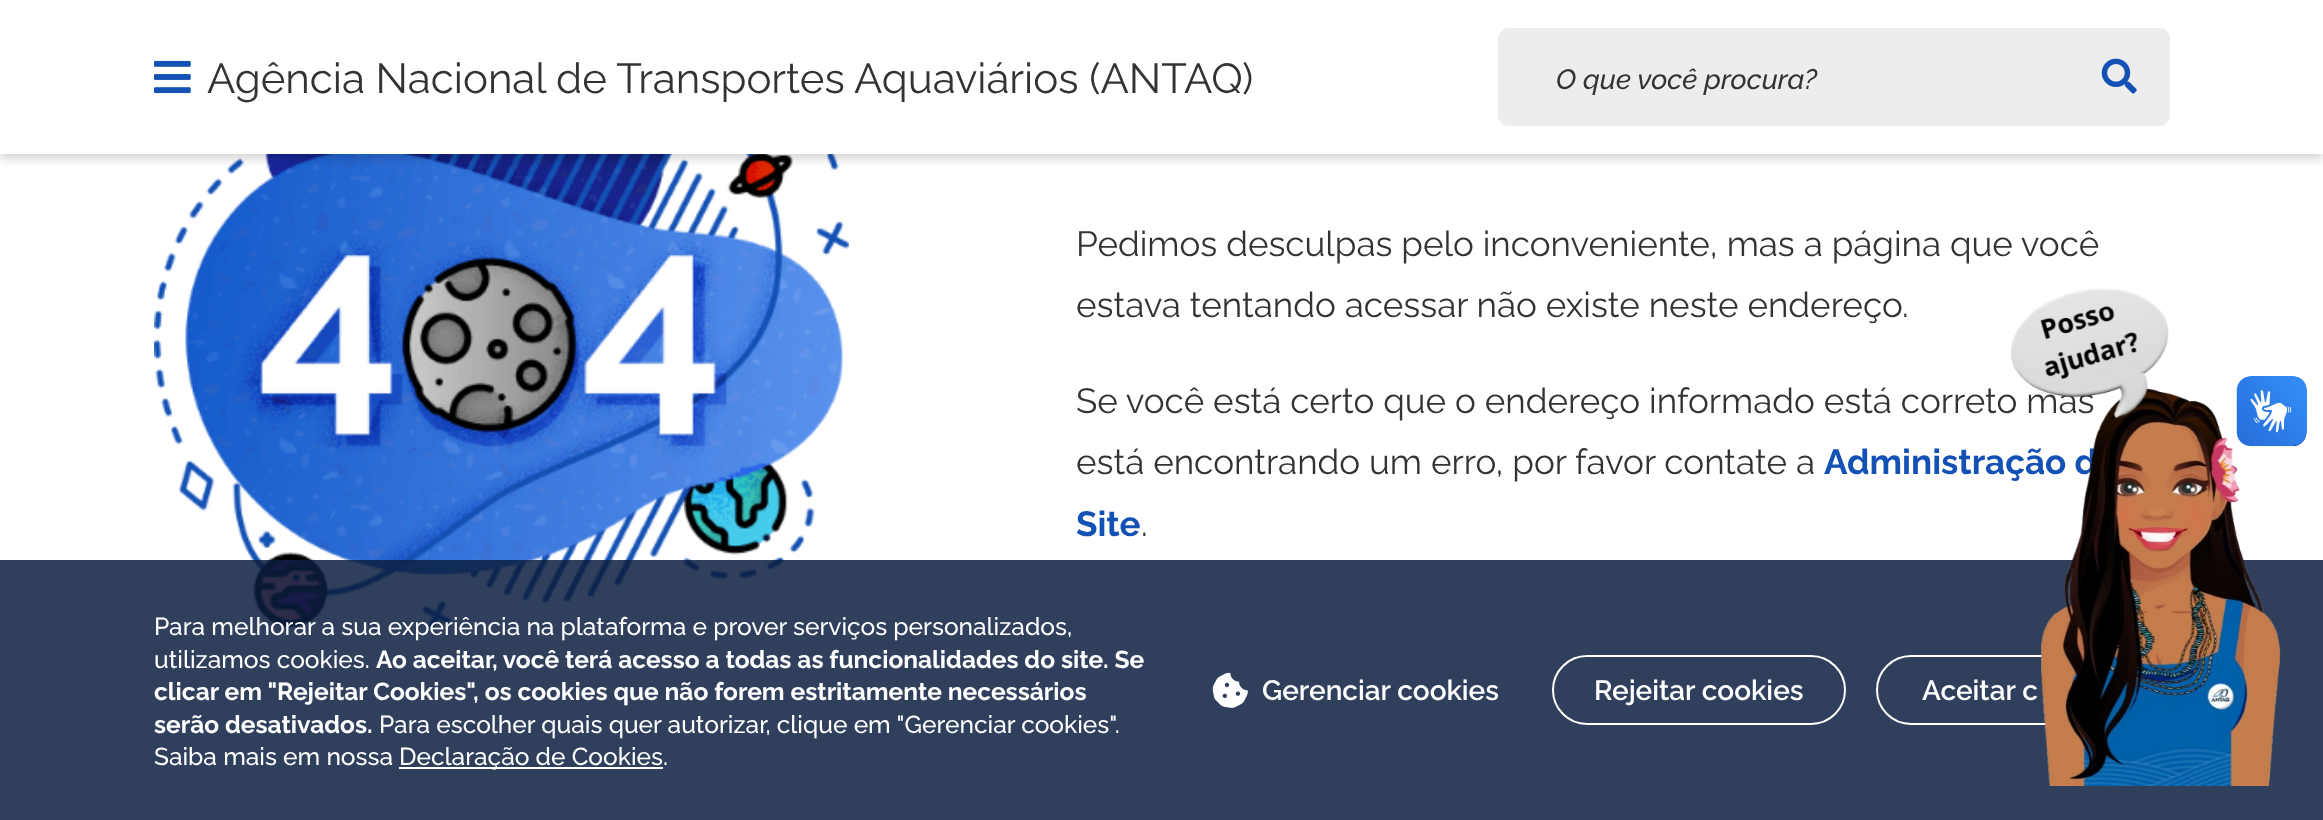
<?xml version="1.0" encoding="UTF-8"?>
<svg xmlns="http://www.w3.org/2000/svg" width="2323" height="820">
    <defs>
        <filter id="blur1" x="-50%" y="-200%" width="200%" height="500%"><feGaussianBlur stdDeviation="5"/></filter>
    </defs>
    <rect width="100%" height="100%" fill="#FFFFFF"/>
    <image x="154" y="154" width="695" height="476" href="img_03.png"/>
    <rect x="0" y="5" width="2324" height="154" fill="#000000" fill-opacity="0.16" filter="url(#blur1)"/>
    <rect x="0" y="0" width="2323" height="154" fill="#FFFFFF"/>
    <image x="154" y="60" width="37" height="34" href="img_01.png"/>
    <text x="207" y="93" font-family="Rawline" font-size="42" fill="#333333">Agência Nacional de Transportes Aquaviários (ANTAQ)</text>
    <rect x="1499" y="29" width="670" height="96" rx="10" fill="#EDEDED" stroke="#EDEDED" stroke-width="2"/>
    <text x="1556" y="89" font-family="Rawline" font-size="28" font-weight="500" font-style="italic" fill="#333333">O que você procura?</text>
    <image x="2101" y="58" width="36" height="36" href="img_02.png"/>
    <text font-family="Rawline" font-size="35" fill="#333333">
        <tspan x="1076" y="256">Pedimos desculpas pelo inconveniente, mas a página que você</tspan>
        <tspan x="1076" y="317">estava tentando acessar não existe neste endereço.</tspan>
    </text>
    <text font-family="Rawline" font-size="35" fill="#333333">
        <tspan x="1076" y="413">Se você está certo que o endereço informado está correto mas</tspan>
        <tspan x="1076" y="474">está encontrando um erro, por favor contate a</tspan>
    </text>
    <text x="1824" y="474" font-family="Rawline" font-size="35" font-weight="700" fill="#1351B4">Administração d</text>
    <text x="1076" y="536" font-family="Rawline" font-size="35" font-weight="700" fill="#1351B4">Site</text>
    <text x="1141" y="536" font-family="Rawline" font-size="35" fill="#333333">.</text>
    <rect x="0" y="560" width="2323" height="260" fill="#0C1E3F" fill-opacity="0.85"/>
    <rect x="1877" y="656" width="292" height="68" rx="34" fill="none" stroke="#FFFFFF" stroke-width="2"/>
    <text x="1922" y="700" font-family="Rawline" font-size="28" font-weight="600" fill="#FFFFFF">Aceitar c</text>
    <image x="2010" y="288" width="271" height="498" href="img_04.png"/>
    <image x="2236" y="376" width="71" height="71" href="img_05.png"/>
    <image x="2237" y="376" width="70" height="70" href="img_06.png"/>
    <text font-family="Rawline" font-size="24.5" font-weight="500" fill="#FFFFFF">
        <tspan x="154" y="635">Para melhorar a sua experiência na plataforma e prover serviços personalizados,</tspan>
        <tspan x="154" y="668">utilizamos cookies.</tspan>
    </text>
    <text x="376" y="668" font-family="Rawline" font-size="24.5" font-weight="700" fill="#FFFFFF">Ao aceitar, você terá acesso a todas as funcionalidades do site. Se</text>
    <text font-family="Rawline" font-size="24.5" font-weight="700" fill="#FFFFFF">
        <tspan x="154" y="700">clicar em "Rejeitar Cookies", os cookies que não forem estritamente necessários</tspan>
        <tspan x="154" y="733">serão desativados.</tspan>
    </text>
    <text x="379" y="733" font-family="Rawline" font-size="24.5" font-weight="500" fill="#FFFFFF">Para escolher quais quer autorizar, clique em "Gerenciar cookies".</text>
    <text x="154" y="765" font-family="Rawline" font-size="24.5" font-weight="500" fill="#FFFFFF">Saiba mais em nossa</text>
    <rect x="399" y="767" width="264" height="2" fill="#FFFFFF"/>
    <text x="399" y="765" font-family="Rawline" font-size="24.5" font-weight="500" fill="#FFFFFF">Declaração de Cookies.</text>
    <image x="1212" y="672" width="36" height="36" href="img_07.png"/>
    <text x="1262" y="700" font-family="Rawline" font-size="28" font-weight="600" fill="#FFFFFF">Gerenciar cookies</text>
    <rect x="1553" y="656" width="292" height="68" rx="34" fill="none" stroke="#FFFFFF" stroke-width="2"/>
    <text x="1594" y="700" font-family="Rawline" font-size="28" font-weight="600" fill="#FFFFFF">Rejeitar cookies</text>
</svg>
